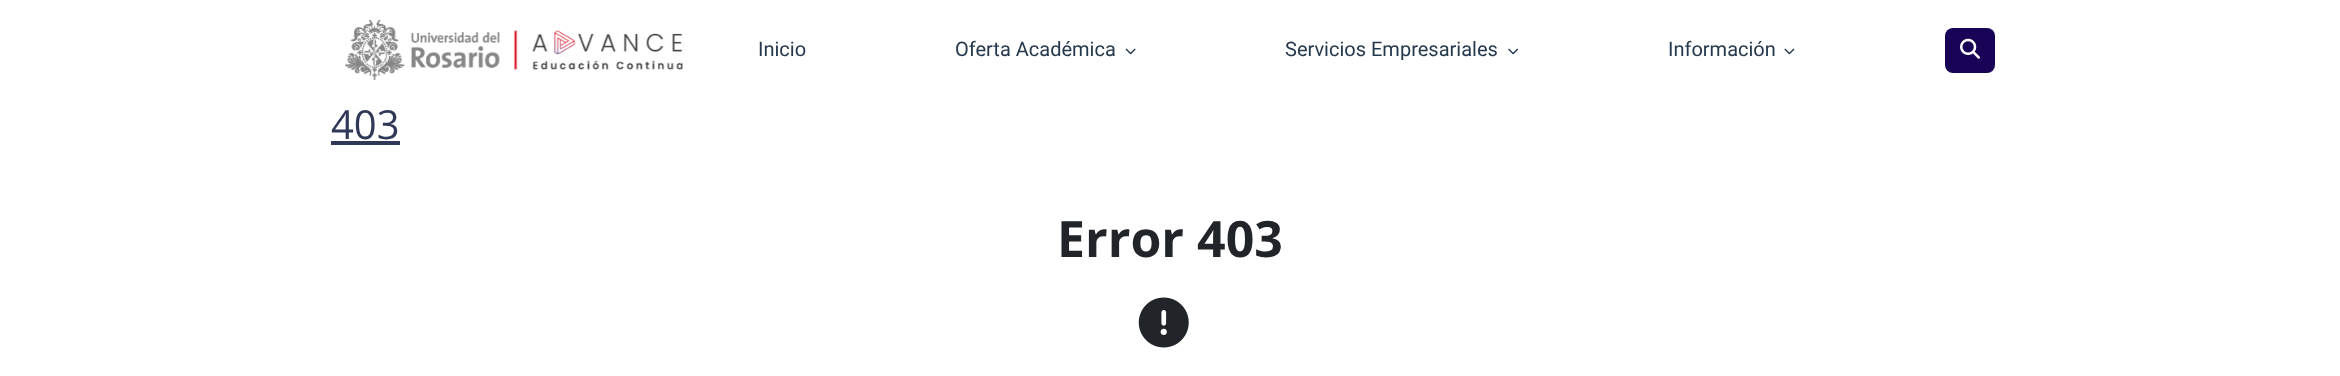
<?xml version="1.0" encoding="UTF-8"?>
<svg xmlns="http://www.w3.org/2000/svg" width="2340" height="376">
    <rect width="100%" height="100%" fill="#FFFFFF"/>
    <image x="345" y="20" width="338" height="60" href="img_01.png"/>
    <text x="758" y="56" font-family="Roboto" font-size="20" fill="#25394D">Inicio</text>
    <text x="955" y="56" font-family="Roboto" font-size="20" fill="#25394D">Oferta Académica</text>
    <image x="1125" y="48" width="11" height="7" href="img_02.png"/>
    <text x="1285" y="56" font-family="Roboto" font-size="20" fill="#25394D">Servicios Empresariales</text>
    <image x="1508" y="48" width="10" height="7" href="img_03.png"/>
    <text x="1668" y="56" font-family="Roboto" font-size="20" fill="#25394D">Información</text>
    <image x="1784" y="48" width="11" height="7" href="img_04.png"/>
    <rect x="1945" y="28" width="50" height="45" rx="8" fill="#190356"/>
    <image x="1960" y="38" width="20" height="21" href="img_05.png"/>
    <text x="331" y="139" font-family="Open Sans" font-size="40" fill="#2F3857">403</text>
    <rect x="331" y="141" width="69" height="4" fill="#2F3857"/>
    <text x="1057" y="257" font-family="Open Sans" font-size="50" font-weight="700" fill="#212529">Error 403</text>
    <image x="1138" y="297" width="51" height="51" href="img_06.png"/>
</svg>
